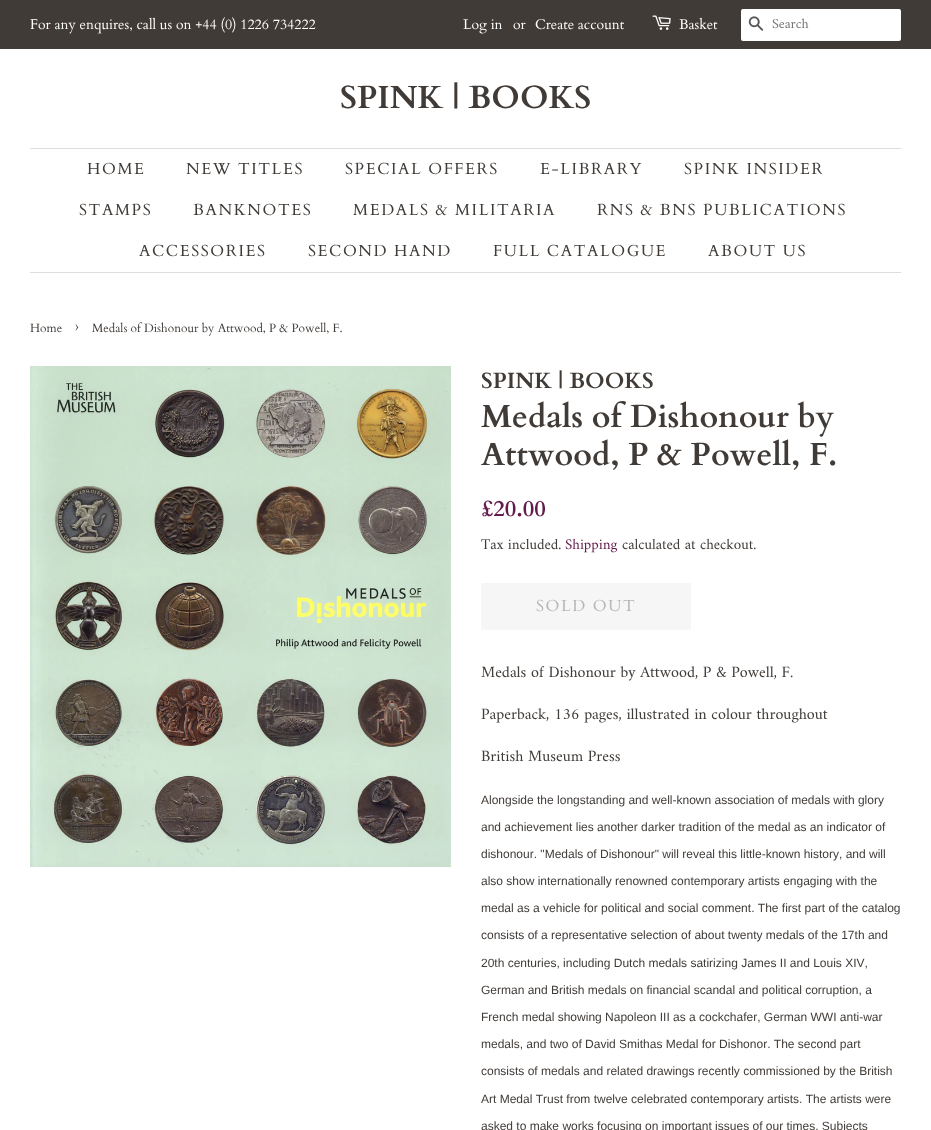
<?xml version="1.0" encoding="UTF-8"?>
<svg xmlns="http://www.w3.org/2000/svg" width="931" height="1130">
    <style>*{font-kerning:none!important;font-variant-ligatures:none!important}</style>
    <rect width="100%" height="100%" fill="#FFFFFF"/>
    <rect x="0" y="0" width="931" height="49" fill="#403B37"/>
    <text x="30" y="29" font-family="Cardo" font-size="14" fill="#FFFFFF">For any enquires, call us on +44 (0) 1226 734222</text>
    <text x="463" y="29" font-family="Cardo" font-size="14" fill="#FFFFFF">Log in</text>
    <text x="513" y="29" font-family="Cardo" font-size="14" fill="#FFFFFF">or</text>
    <text x="535" y="29" font-family="Cardo" font-size="14" fill="#FFFFFF">Create account</text>
    <image x="652" y="15" width="19" height="15" href="img_01.png"/>
    <text x="679" y="29" font-family="Cardo" font-size="14" fill="#FFFFFF">Basket</text>
    <rect x="741" y="9" width="160" height="32" rx="2" fill="#FFFFFF"/>
    <image x="748" y="16" width="16" height="15" href="img_02.png"/>
    <text x="772" y="28" font-family="Amiri" font-size="14" fill="#757575">Search</text>
    <text x="340" y="108" font-family="Cardo" font-size="32" font-weight="700" fill="#403B37">SPINK | BOOKS</text>
    <rect x="30" y="148" width="871" height="1" fill="#DDDDDD"/>
    <rect x="30" y="272" width="871" height="1" fill="#DDDDDD"/>
    <text x="87" y="174" font-family="Cardo" font-size="16" letter-spacing="1.6" fill="#403B37">HOME</text>
    <text x="186" y="174" font-family="Cardo" font-size="16" letter-spacing="1.6" fill="#403B37">NEW TITLES</text>
    <text x="345" y="174" font-family="Cardo" font-size="16" letter-spacing="1.6" fill="#403B37">SPECIAL OFFERS</text>
    <text x="540" y="174" font-family="Cardo" font-size="16" letter-spacing="1.6" fill="#403B37">E-LIBRARY</text>
    <text x="684" y="174" font-family="Cardo" font-size="16" letter-spacing="1.6" fill="#403B37">SPINK INSIDER</text>
    <text x="79" y="215" font-family="Cardo" font-size="16" letter-spacing="1.6" fill="#403B37">STAMPS</text>
    <text x="193" y="215" font-family="Cardo" font-size="16" letter-spacing="1.6" fill="#403B37">BANKNOTES</text>
    <text x="353" y="215" font-family="Cardo" font-size="16" letter-spacing="1.6" fill="#403B37">MEDALS &amp; MILITARIA</text>
    <text x="597" y="215" font-family="Cardo" font-size="16" letter-spacing="1.6" fill="#403B37">RNS &amp; BNS PUBLICATIONS</text>
    <text x="139" y="256" font-family="Cardo" font-size="16" letter-spacing="1.6" fill="#403B37">ACCESSORIES</text>
    <text x="308" y="256" font-family="Cardo" font-size="16" letter-spacing="1.6" fill="#403B37">SECOND HAND</text>
    <text x="493" y="256" font-family="Cardo" font-size="16" letter-spacing="1.6" fill="#403B37">FULL CATALOGUE</text>
    <text x="708" y="256" font-family="Cardo" font-size="16" letter-spacing="1.6" fill="#403B37">ABOUT US</text>
    <text x="30" y="332" font-family="Cardo" font-size="12" fill="#403B37">Home</text>
    <text x="75" y="332" font-family="Cardo" font-size="17" fill="#403B37">›</text>
    <text x="92" y="332" font-family="Cardo" font-size="12" fill="#403B37">Medals of Dishonour by Attwood, P &amp; Powell, F.</text>
    <image x="30" y="366" width="421" height="501" href="img_03.png"/>
    <text x="481" y="388" font-family="Cardo" font-size="22" font-weight="700" fill="#403B37">SPINK | BOOKS</text>
    <text font-family="Cardo" font-size="32" font-weight="700" fill="#403B37">
        <tspan x="481" y="427">Medals of Dishonour by</tspan>
        <tspan x="481" y="465">Attwood, P &amp; Powell,</tspan>
    </text>
    <text x="809" y="465" font-family="Cardo" font-size="32" font-weight="700" fill="#403B37">F.</text>
    <text x="481" y="516" font-family="Cardo" font-size="22.5" font-weight="700" fill="#621B4B">£20.00</text>
    <text x="481" y="549" font-family="Amiri" font-size="15" fill="#403B37">Tax included.</text>
    <text x="565" y="549" font-family="Amiri" font-size="15" fill="#621B4B">Shipping</text>
    <text x="622" y="549" font-family="Amiri" font-size="15" fill="#403B37">calculated at checkout.</text>
    <rect x="481" y="583" width="210" height="47" rx="2" fill="#F6F6F6"/>
    <text x="536" y="611" font-family="Cardo" font-size="16" letter-spacing="1.6" fill="#B6B6B6">SOLD OUT</text>
    <text x="481" y="677" font-family="Amiri" font-size="16" fill="#403B37">Medals of Dishonour by Attwood, P &amp; Powell, F.</text>
    <text x="481" y="719" font-family="Amiri" font-size="16" fill="#403B37">Paperback, 136 pages, illustrated in colour throughout</text>
    <text x="481" y="761" font-family="Amiri" font-size="16" fill="#403B37">British Museum Press</text>
    <text x="481" y="804" font-family="Liberation Sans" font-size="12" fill="#403B37">Alongside the longstanding and well-known association of medals with glory</text>
    <text x="481" y="831" font-family="Liberation Sans" font-size="12" fill="#403B37">and achievement lies another darker tradition of the medal as an indicator of</text>
    <text x="481" y="858" font-family="Liberation Sans" font-size="12" fill="#403B37">dishonour. "Medals of Dishonour" will reveal this little-known history, and will</text>
    <text x="481" y="885" font-family="Liberation Sans" font-size="12" fill="#403B37">also show internationally renowned contemporary artists engaging with the</text>
    <text x="481" y="912" font-family="Liberation Sans" font-size="12" fill="#403B37">medal as a vehicle for political and social comment. The first part of the catalog</text>
    <text x="481" y="939" font-family="Liberation Sans" font-size="12" fill="#403B37">consists of a representative selection of about twenty medals of the 17th and</text>
    <text x="481" y="967" font-family="Liberation Sans" font-size="12" fill="#403B37">20th centuries, including Dutch medals satirizing James II and Louis XIV,</text>
    <text x="481" y="994" font-family="Liberation Sans" font-size="12" fill="#403B37">German and British medals on financial scandal and political corruption, a</text>
    <text x="481" y="1021" font-family="Liberation Sans" font-size="12" fill="#403B37">French medal showing Napoleon III as a cockchafer, German WWI anti-war</text>
    <text x="481" y="1048" font-family="Liberation Sans" font-size="12" fill="#403B37">medals, and two of David Smithas Medal for Dishonor. The second part</text>
    <text x="481" y="1075" font-family="Liberation Sans" font-size="12" fill="#403B37">consists of medals and related drawings recently commissioned by the British</text>
    <text x="481" y="1103" font-family="Liberation Sans" font-size="12" fill="#403B37">Art Medal Trust from twelve celebrated contemporary artists. The artists were</text>
    <text x="481" y="1130" font-family="Liberation Sans" font-size="12" fill="#403B37">asked to make works focusing on important issues of our times. Subjects</text>
</svg>
